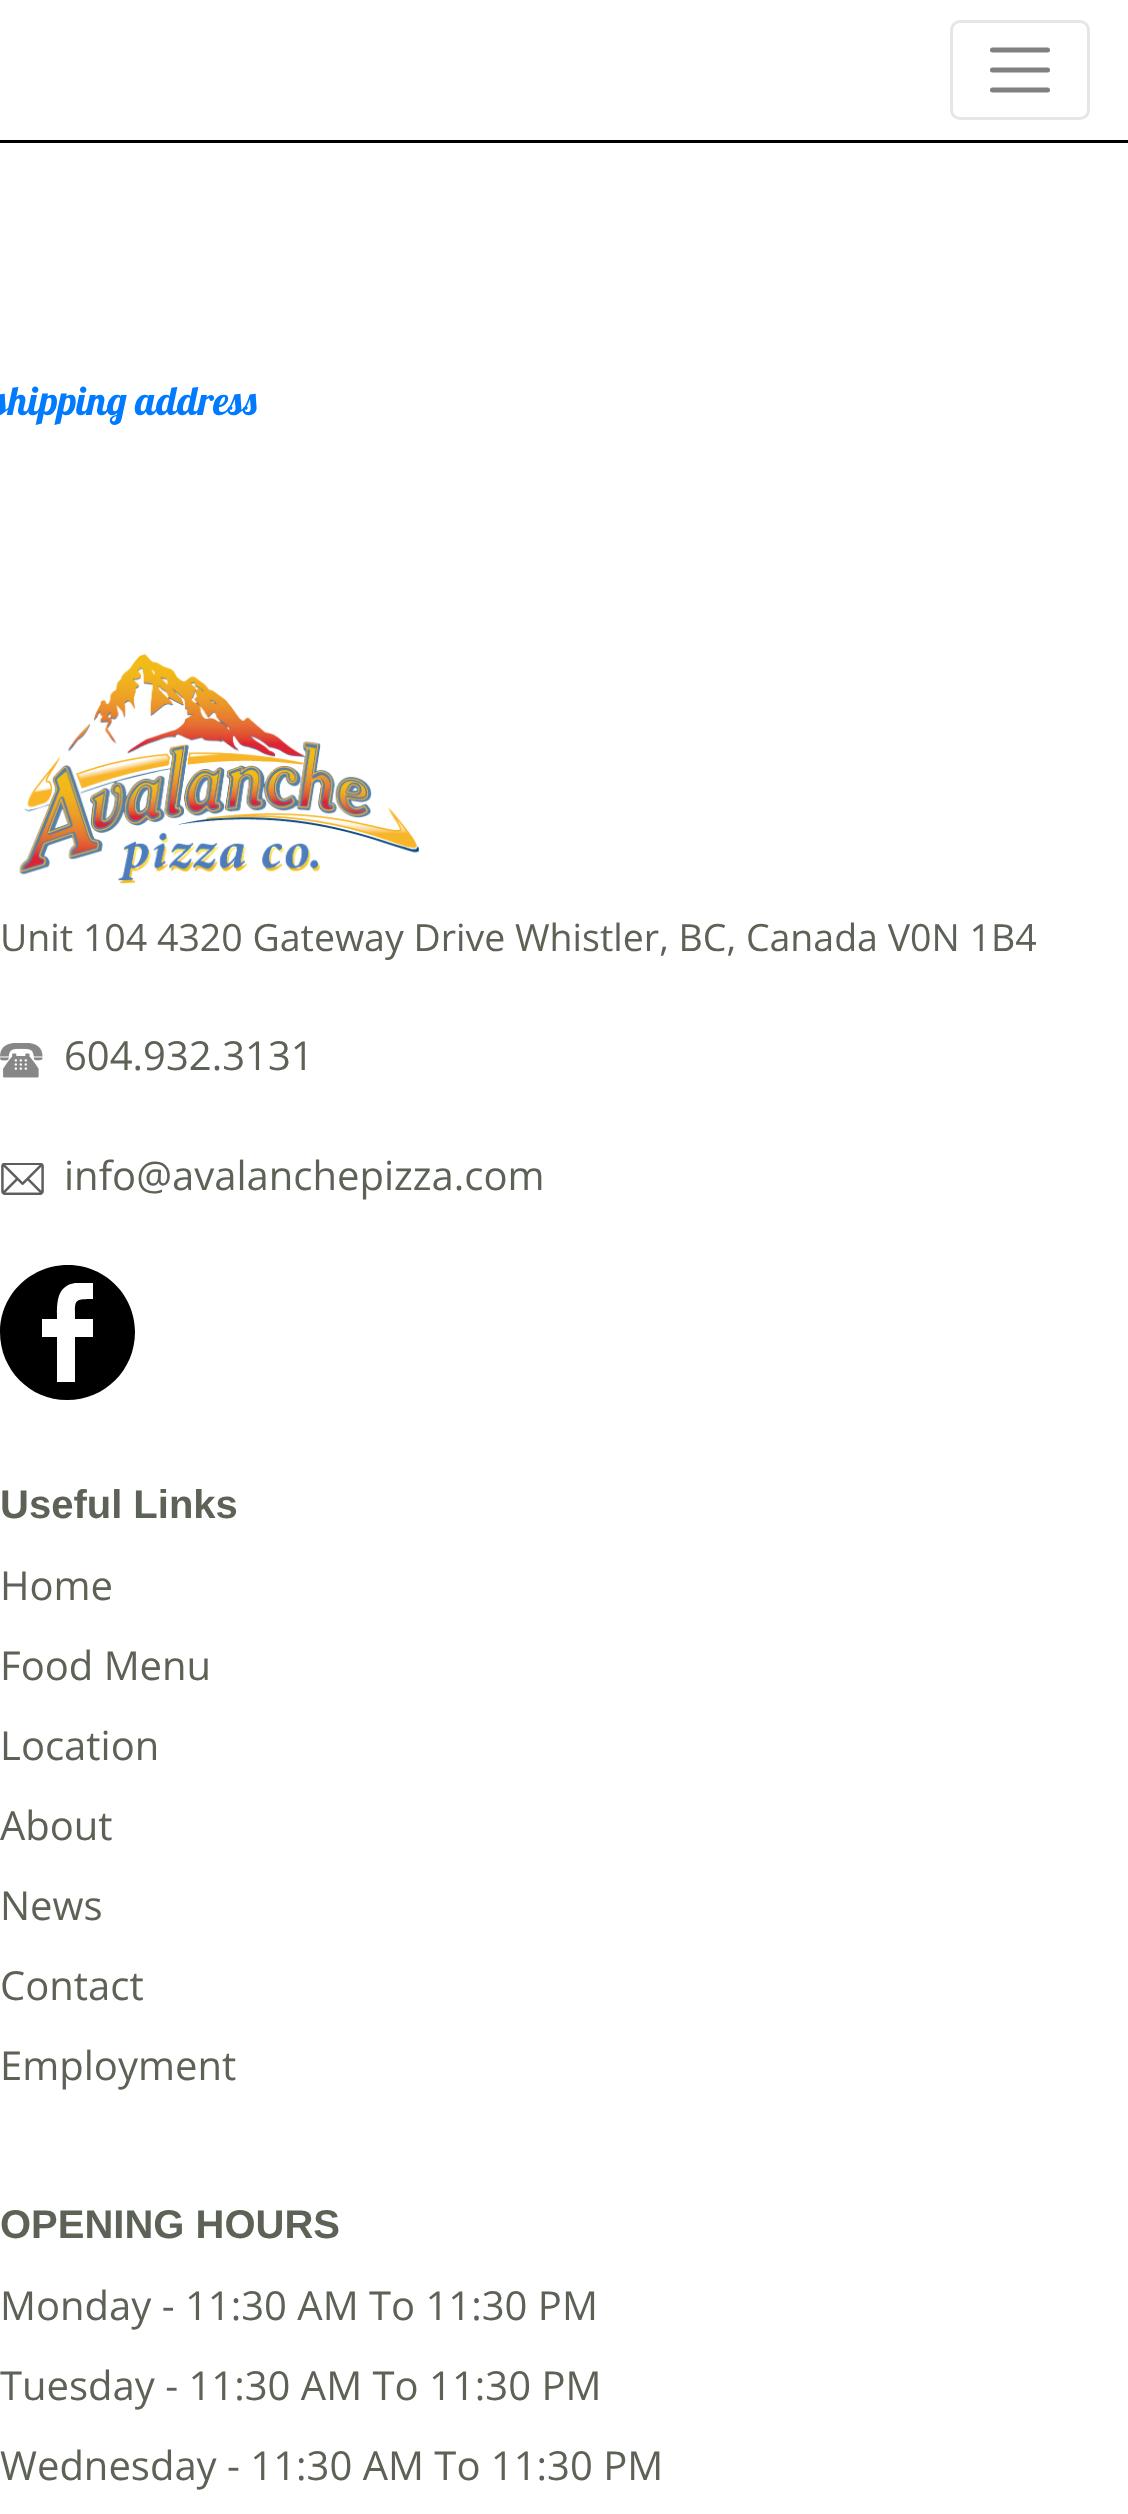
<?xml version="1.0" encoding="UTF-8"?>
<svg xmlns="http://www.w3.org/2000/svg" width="1128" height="2514">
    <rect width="100%" height="100%" fill="#FFFFFF"/>
    <rect x="0" y="140" width="1128" height="3" fill="#000000"/>
    <rect x="951.5" y="21.5" width="137" height="97" rx="8.5" fill="none" stroke="#E6E6E6" stroke-width="3"/>
    <path d="M 992.5 50 H 1047.5 M 992.5 70 H 1047.5 M 992.5 90 H 1047.5" fill="none" stroke="#808080" stroke-width="5" stroke-linecap="round"/>
    <text x="-7" y="415" font-family="Lobster" font-size="40" fill="#007BFF">shipping address</text>
    <image x="19" y="653" width="400" height="231" href="img_01.png"/>
    <text x="0" y="951" font-family="Open Sans" font-size="37.5" fill="#5D6256">Unit 104 4320 Gateway Drive Whistler, BC, Canada V0N 1B4</text>
    <image x="0" y="1043" width="43" height="35" href="img_02.png"/>
    <text x="64" y="1070" font-family="Open Sans" font-size="40" fill="#5D6256">604.932.3131</text>
    <image x="1" y="1163" width="43" height="32" href="img_03.png"/>
    <text x="64" y="1190" font-family="Open Sans" font-size="40" fill="#5D6256">info@avalanchepizza.com</text>
    <path d="M 68 1265 C 30 1265 0 1295 0 1332 C 0 1370 30 1400 67 1400 C 105 1400 135 1370 135 1332 C 135 1295 105 1265 68 1265 Z M 93 1299 C 73 1299 75 1300 75 1319 H 93 V 1337 H 75 V 1382 H 57 V 1337 H 42 V 1319 H 57 C 57 1304 56 1286 75 1283 H 93 Z" fill="#000000"/>
    <text x="0" y="1518" font-family="Liberation Sans" font-size="40" font-weight="700" fill="#5D6256">Useful Links</text>
    <text x="0" y="1600" font-family="Open Sans" font-size="40" fill="#5D6256">Home</text>
    <text x="0" y="1680" font-family="Open Sans" font-size="40" fill="#5D6256">Food Menu</text>
    <text x="0" y="1760" font-family="Open Sans" font-size="40" fill="#5D6256">Location</text>
    <text x="0" y="1840" font-family="Open Sans" font-size="40" fill="#5D6256">About</text>
    <text x="0" y="1920" font-family="Open Sans" font-size="40" fill="#5D6256">News</text>
    <text x="0" y="2000" font-family="Open Sans" font-size="40" fill="#5D6256">Contact</text>
    <text x="0" y="2080" font-family="Open Sans" font-size="40" fill="#5D6256">Employment</text>
    <text x="0" y="2238" font-family="Liberation Sans" font-size="40" font-weight="700" fill="#5D6256">OPENING HOURS</text>
    <text x="0" y="2320" font-family="Open Sans" font-size="40" fill="#5D6256">Monday - 11:30 AM To 11:30 PM</text>
    <text x="0" y="2400" font-family="Open Sans" font-size="40" fill="#5D6256">Tuesday - 11:30 AM To 11:30 PM</text>
    <text x="0" y="2480" font-family="Open Sans" font-size="40" fill="#5D6256">Wednesday - 11:30 AM To 11:30 PM</text>
</svg>
